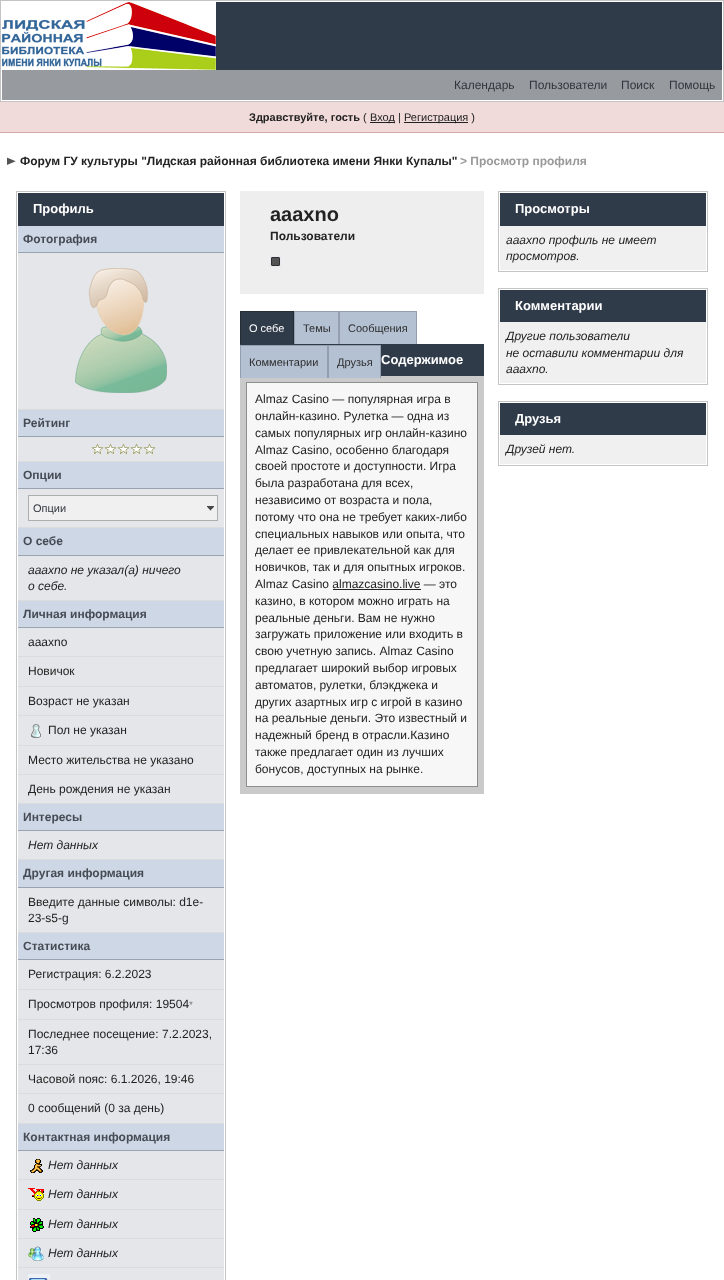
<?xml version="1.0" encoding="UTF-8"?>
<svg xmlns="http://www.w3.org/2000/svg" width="724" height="1280">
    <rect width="100%" height="100%" fill="#FFFFFF"/>
    <rect x="0.5" y="0.5" width="723" height="101" fill="none" stroke="#C4C4C4"/>
    <rect x="216" y="2" width="506" height="68" fill="#303B4A"/>
    <image x="2" y="2" width="214" height="68" href="img_01.png"/>
    <rect x="2" y="70" width="720" height="30" fill="#979BA0"/>
    <text x="454" y="89" font-family="Liberation Sans" font-size="12" fill="#31363D">Календарь</text>
    <text x="529" y="89" font-family="Liberation Sans" font-size="12" fill="#31363D">Пользователи</text>
    <text x="621" y="89" font-family="Liberation Sans" font-size="12" fill="#31363D">Поиск</text>
    <text x="669" y="89" font-family="Liberation Sans" font-size="12" fill="#31363D">Помощь</text>
    <rect x="0" y="102" width="724" height="30" fill="#F1DADA"/>
    <rect x="0" y="132" width="724" height="1" fill="#D1A9A9"/>
    <text x="249" y="121" font-family="Liberation Sans" font-size="11" font-weight="700" fill="#222222">Здравствуйте, гость</text>
    <text x="363" y="121" font-family="Liberation Sans" font-size="11" fill="#222222">(</text>
    <rect x="370" y="122" width="25" height="1" fill="#222222"/>
    <text x="370" y="121" font-family="Liberation Sans" font-size="11" fill="#222222">Вход |</text>
    <rect x="404" y="122" width="64" height="1" fill="#222222"/>
    <text x="404" y="121" font-family="Liberation Sans" font-size="11" fill="#222222">Регистрация )</text>
    <image x="7" y="157" width="9" height="8" href="img_02.png"/>
    <text x="20" y="165" font-family="Liberation Sans" font-size="12" font-weight="700" fill="#222222">Форум ГУ культуры "Лидская районная библиотека имени Янки Купалы"</text>
    <text x="460" y="165" font-family="Liberation Sans" font-size="12" font-weight="700" fill="#999999">&gt; Просмотр профиля</text>
    <rect x="16.5" y="191.5" width="209" height="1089" fill="none" stroke="#C4C4C4"/>
    <rect x="18" y="193" width="206" height="33" fill="#303B4A"/>
    <text x="33" y="213" font-family="Liberation Sans" font-size="13" font-weight="700" fill="#FFFFFF">Профиль</text>
    <rect x="18" y="226" width="206" height="26" fill="#CED7E5"/>
    <rect x="18" y="252" width="206" height="1" fill="#9AA4B1"/>
    <text x="23" y="243" font-family="Liberation Sans" font-size="12" font-weight="700" fill="#464C55">Фотография</text>
    <rect x="18" y="253" width="206" height="156" fill="#E4E6E9"/>
    <rect x="18" y="409" width="206" height="1" fill="#DCDCDC"/>
    <image x="75" y="268" width="92" height="125" href="img_03.png"/>
    <rect x="18" y="410" width="206" height="26" fill="#CED7E5"/>
    <rect x="18" y="436" width="206" height="1" fill="#9AA4B1"/>
    <text x="23" y="427" font-family="Liberation Sans" font-size="12" font-weight="700" fill="#464C55">Рейтинг</text>
    <rect x="18" y="437" width="206" height="24" fill="#E4E6E9"/>
    <rect x="18" y="461" width="206" height="1" fill="#DCDCDC"/>
    <image x="91" y="443" width="13" height="12" href="img_04.png"/>
    <image x="104" y="443" width="13" height="12" href="img_04.png"/>
    <image x="117" y="443" width="13" height="12" href="img_04.png"/>
    <image x="130" y="443" width="13" height="12" href="img_04.png"/>
    <image x="143" y="443" width="13" height="12" href="img_04.png"/>
    <rect x="18" y="462" width="206" height="26" fill="#CED7E5"/>
    <rect x="18" y="488" width="206" height="1" fill="#9AA4B1"/>
    <text x="23" y="479" font-family="Liberation Sans" font-size="12" font-weight="700" fill="#464C55">Опции</text>
    <rect x="18" y="489" width="206" height="38" fill="#E4E6E9"/>
    <rect x="18" y="527" width="206" height="1" fill="#DCDCDC"/>
    <rect x="29" y="496" width="188" height="24" fill="#F0F0F0"/>
    <image x="207" y="506" width="7" height="5" href="img_05.png"/>
    <rect x="28.5" y="495.5" width="189" height="25" fill="none" stroke="#ADADAD"/>
    <text x="33" y="512" font-family="Liberation Sans" font-size="11" fill="#31363D">Опции</text>
    <rect x="18" y="528" width="206" height="27" fill="#CED7E5"/>
    <rect x="18" y="555" width="206" height="1" fill="#9AA4B1"/>
    <text x="23" y="545" font-family="Liberation Sans" font-size="12" font-weight="700" fill="#464C55">О себе</text>
    <rect x="18" y="556" width="206" height="44" fill="#E4E6E9"/>
    <rect x="18" y="600" width="206" height="1" fill="#DCDCDC"/>
    <text font-family="Liberation Sans" font-size="12" font-style="italic" fill="#222222">
        <tspan x="28" y="574">aaaxno не указал(а) ничего</tspan>
        <tspan x="28" y="590">о себе.</tspan>
    </text>
    <rect x="18" y="601" width="206" height="26" fill="#CED7E5"/>
    <rect x="18" y="627" width="206" height="1" fill="#9AA4B1"/>
    <text x="23" y="618" font-family="Liberation Sans" font-size="12" font-weight="700" fill="#464C55">Личная информация</text>
    <rect x="18" y="628" width="206" height="28" fill="#E4E6E9"/>
    <rect x="18" y="656" width="206" height="1" fill="#DCDCDC"/>
    <text x="28" y="646" font-family="Liberation Sans" font-size="12" fill="#222222">aaaxno</text>
    <rect x="18" y="657" width="206" height="29" fill="#E4E6E9"/>
    <rect x="18" y="686" width="206" height="1" fill="#DCDCDC"/>
    <text x="28" y="675" font-family="Liberation Sans" font-size="12" fill="#222222">Новичок</text>
    <rect x="18" y="687" width="206" height="28" fill="#E4E6E9"/>
    <rect x="18" y="715" width="206" height="1" fill="#DCDCDC"/>
    <text x="28" y="705" font-family="Liberation Sans" font-size="12" fill="#222222">Возраст не указан</text>
    <rect x="18" y="716" width="206" height="29" fill="#E4E6E9"/>
    <rect x="18" y="745" width="206" height="1" fill="#DCDCDC"/>
    <image x="31" y="724" width="10" height="14" href="img_06.png"/>
    <text x="48" y="734" font-family="Liberation Sans" font-size="12" fill="#222222">Пол не указан</text>
    <rect x="18" y="746" width="206" height="28" fill="#E4E6E9"/>
    <rect x="18" y="774" width="206" height="1" fill="#DCDCDC"/>
    <text x="28" y="764" font-family="Liberation Sans" font-size="12" fill="#222222">Место жительства не указано</text>
    <rect x="18" y="775" width="206" height="28" fill="#E4E6E9"/>
    <rect x="18" y="803" width="206" height="1" fill="#DCDCDC"/>
    <text x="28" y="793" font-family="Liberation Sans" font-size="12" fill="#222222">День рождения не указан</text>
    <rect x="18" y="804" width="206" height="26" fill="#CED7E5"/>
    <rect x="18" y="830" width="206" height="1" fill="#9AA4B1"/>
    <text x="23" y="821" font-family="Liberation Sans" font-size="12" font-weight="700" fill="#464C55">Интересы</text>
    <rect x="18" y="831" width="206" height="28" fill="#E4E6E9"/>
    <rect x="18" y="859" width="206" height="1" fill="#DCDCDC"/>
    <text x="28" y="849" font-family="Liberation Sans" font-size="12" font-style="italic" fill="#222222">Нет данных</text>
    <rect x="18" y="860" width="206" height="27" fill="#CED7E5"/>
    <rect x="18" y="887" width="206" height="1" fill="#9AA4B1"/>
    <text x="23" y="877" font-family="Liberation Sans" font-size="12" font-weight="700" fill="#464C55">Другая информация</text>
    <rect x="18" y="888" width="206" height="44" fill="#E4E6E9"/>
    <rect x="18" y="932" width="206" height="1" fill="#DCDCDC"/>
    <text font-family="Liberation Sans" font-size="12" fill="#222222">
        <tspan x="28" y="906">Введите данные символы: d1e-</tspan>
        <tspan x="28" y="922">23-s5-g</tspan>
    </text>
    <rect x="18" y="933" width="206" height="26" fill="#CED7E5"/>
    <rect x="18" y="959" width="206" height="1" fill="#9AA4B1"/>
    <text x="23" y="950" font-family="Liberation Sans" font-size="12" font-weight="700" fill="#464C55">Статистика</text>
    <rect x="18" y="960" width="206" height="29" fill="#E4E6E9"/>
    <rect x="18" y="989" width="206" height="1" fill="#DCDCDC"/>
    <text x="28" y="978" font-family="Liberation Sans" font-size="12" fill="#222222">Регистрация: 6.2.2023</text>
    <rect x="18" y="990" width="206" height="29" fill="#E4E6E9"/>
    <rect x="18" y="1019" width="206" height="1" fill="#DCDCDC"/>
    <text x="28" y="1008" font-family="Liberation Sans" font-size="12" fill="#222222">Просмотров профиля: 19504</text>
    <text x="189" y="1008" font-family="Liberation Sans" font-size="10" fill="#808080">*</text>
    <rect x="18" y="1020" width="206" height="44" fill="#E4E6E9"/>
    <rect x="18" y="1064" width="206" height="1" fill="#DCDCDC"/>
    <text font-family="Liberation Sans" font-size="12" fill="#222222">
        <tspan x="28" y="1038">Последнее посещение: 7.2.2023,</tspan>
        <tspan x="28" y="1054">17:36</tspan>
    </text>
    <rect x="18" y="1065" width="206" height="28" fill="#E4E6E9"/>
    <rect x="18" y="1093" width="206" height="1" fill="#DCDCDC"/>
    <text x="28" y="1083" font-family="Liberation Sans" font-size="12" fill="#222222">Часовой пояс: 6.1.2026, 19:46</text>
    <rect x="18" y="1094" width="206" height="29" fill="#E4E6E9"/>
    <rect x="18" y="1123" width="206" height="1" fill="#DCDCDC"/>
    <text x="28" y="1112" font-family="Liberation Sans" font-size="12" fill="#222222">0 сообщений (0 за день)</text>
    <rect x="18" y="1124" width="206" height="26" fill="#CED7E5"/>
    <rect x="18" y="1150" width="206" height="1" fill="#9AA4B1"/>
    <text x="23" y="1141" font-family="Liberation Sans" font-size="12" font-weight="700" fill="#464C55">Контактная информация</text>
    <rect x="18" y="1151" width="206" height="28" fill="#E4E6E9"/>
    <rect x="18" y="1179" width="206" height="1" fill="#DCDCDC"/>
    <image x="30" y="1159" width="13" height="14" href="img_07.png"/>
    <text x="48" y="1169" font-family="Liberation Sans" font-size="12" font-style="italic" fill="#222222">Нет данных</text>
    <rect x="18" y="1180" width="206" height="29" fill="#E4E6E9"/>
    <rect x="18" y="1209" width="206" height="1" fill="#DCDCDC"/>
    <image x="28" y="1188" width="16" height="13" href="img_08.png"/>
    <text x="48" y="1198" font-family="Liberation Sans" font-size="12" font-style="italic" fill="#222222">Нет данных</text>
    <rect x="18" y="1210" width="206" height="28" fill="#E4E6E9"/>
    <rect x="18" y="1238" width="206" height="1" fill="#DCDCDC"/>
    <image x="30" y="1218" width="14" height="14" href="img_09.png"/>
    <text x="48" y="1228" font-family="Liberation Sans" font-size="12" font-style="italic" fill="#222222">Нет данных</text>
    <rect x="18" y="1239" width="206" height="28" fill="#E4E6E9"/>
    <rect x="18" y="1267" width="206" height="1" fill="#DCDCDC"/>
    <image x="28" y="1246" width="16" height="15" href="img_10.png"/>
    <text x="48" y="1257" font-family="Liberation Sans" font-size="12" font-style="italic" fill="#222222">Нет данных</text>
    <rect x="18" y="1268" width="206" height="12" fill="#E4E6E9"/>
    <image x="28" y="1274" width="22" height="6" href="img_11.png"/>
    <rect x="240" y="191" width="244" height="103" fill="#EEEEEE"/>
    <text x="270" y="221" font-family="Liberation Sans" font-size="20" font-weight="700" fill="#222222">aaaxno</text>
    <text x="270" y="240" font-family="Liberation Sans" font-size="12" font-weight="700" fill="#222222">Пользователи</text>
    <image x="270" y="256" width="11" height="11" href="img_12.png"/>
    <rect x="241" y="312" width="52" height="32" fill="#303B4A"/>
    <rect x="240" y="311" width="54" height="1" fill="#262D35"/>
    <rect x="293" y="311" width="1" height="33" fill="#262D35"/>
    <rect x="240" y="311" width="1" height="33" fill="#262D35"/>
    <text x="249" y="332" font-family="Liberation Sans" font-size="11" fill="#FFFFFF">О себе</text>
    <rect x="295" y="312" width="43" height="32" fill="#B4C1D3"/>
    <rect x="294" y="311" width="123" height="1" fill="#939FAE"/>
    <rect x="338" y="311" width="2" height="33" fill="#939FAE"/>
    <rect x="294" y="311" width="1" height="33" fill="#939FAE"/>
    <text x="303" y="332" font-family="Liberation Sans" font-size="11" fill="#2D2D2D">Темы</text>
    <rect x="340" y="312" width="76" height="32" fill="#B4C1D3"/>
    <rect x="416" y="311" width="1" height="33" fill="#939FAE"/>
    <text x="348" y="332" font-family="Liberation Sans" font-size="11" fill="#2D2D2D">Сообщения</text>
    <rect x="240" y="344" width="244" height="32" fill="#303B4A"/>
    <rect x="240" y="376" width="244" height="418" fill="#CACACA"/>
    <rect x="241" y="346" width="86" height="32" fill="#B4C1D3"/>
    <rect x="240" y="345" width="141" height="1" fill="#939FAE"/>
    <rect x="327" y="345" width="2" height="33" fill="#939FAE"/>
    <rect x="240" y="345" width="1" height="33" fill="#939FAE"/>
    <text x="249" y="366" font-family="Liberation Sans" font-size="11" fill="#2D2D2D">Комментарии</text>
    <rect x="329" y="346" width="51" height="32" fill="#B4C1D3"/>
    <rect x="380" y="345" width="1" height="33" fill="#939FAE"/>
    <text x="337" y="366" font-family="Liberation Sans" font-size="11" fill="#2D2D2D">Друзья</text>
    <text x="381" y="364" font-family="Liberation Sans" font-size="13" font-weight="700" fill="#FFFFFF">Содержимое</text>
    <rect x="246.5" y="382.5" width="231" height="404" fill="#F7F7F7" stroke="#8E8E8E"/>
    <text font-family="Liberation Sans" font-size="12" fill="#222222">
        <tspan x="255" y="403">Almaz Casino — популярная игра в</tspan>
        <tspan x="255" y="420">онлайн-казино. Рулетка — одна из</tspan>
        <tspan x="255" y="437">самых популярных игр онлайн-казино</tspan>
        <tspan x="255" y="454">Almaz Casino, особенно благодаря</tspan>
        <tspan x="255" y="470">своей простоте и доступности. Игра</tspan>
        <tspan x="255" y="487">была разработана для всех,</tspan>
        <tspan x="255" y="504">независимо от возраста и пола,</tspan>
        <tspan x="255" y="521">потому что она не требует каких-либо</tspan>
        <tspan x="255" y="538">специальных навыков или опыта, что</tspan>
        <tspan x="255" y="554">делает ее привлекательной как для</tspan>
        <tspan x="255" y="571">новичков, так и для опытных игроков.</tspan>
        <tspan x="255" y="588">Almaz Casino almazcasino.live — это</tspan>
    </text>
    <rect x="333" y="589" width="88" height="1" fill="#222222"/>
    <text font-family="Liberation Sans" font-size="12" fill="#222222">
        <tspan x="255" y="605">казино, в котором можно играть на</tspan>
        <tspan x="255" y="622">реальные деньги. Вам не нужно</tspan>
        <tspan x="255" y="638">загружать приложение или входить в</tspan>
        <tspan x="255" y="655">свою учетную запись. Almaz Casino</tspan>
        <tspan x="255" y="672">предлагает широкий выбор игровых</tspan>
        <tspan x="255" y="689">автоматов, рулетки, блэкджека и</tspan>
        <tspan x="255" y="706">других азартных игр с игрой в казино</tspan>
        <tspan x="255" y="722">на реальные деньги. Это известный и</tspan>
        <tspan x="255" y="739">надежный бренд в отрасли.Казино</tspan>
        <tspan x="255" y="756">также предлагает один из лучших</tspan>
        <tspan x="255" y="773">бонусов, доступных на рынке.</tspan>
    </text>
    <rect x="498.5" y="191.5" width="209" height="80" fill="none" stroke="#C4C4C4"/>
    <rect x="500" y="193" width="206" height="33" fill="#303B4A"/>
    <text x="515" y="213" font-family="Liberation Sans" font-size="13" font-weight="700" fill="#FFFFFF">Просмотры</text>
    <rect x="500" y="226" width="206" height="44" fill="#F0F0F0"/>
    <text font-family="Liberation Sans" font-size="12" font-style="italic" fill="#222222">
        <tspan x="506" y="244">aaaxno профиль не имеет</tspan>
        <tspan x="506" y="260">просмотров.</tspan>
    </text>
    <rect x="498.5" y="288.5" width="209" height="96" fill="none" stroke="#C4C4C4"/>
    <rect x="500" y="290" width="206" height="32" fill="#303B4A"/>
    <text x="515" y="310" font-family="Liberation Sans" font-size="13" font-weight="700" fill="#FFFFFF">Комментарии</text>
    <rect x="500" y="322" width="206" height="61" fill="#F0F0F0"/>
    <text font-family="Liberation Sans" font-size="12" font-style="italic" fill="#222222">
        <tspan x="506" y="340">Другие пользователи</tspan>
        <tspan x="506" y="357">не оставили комментарии для</tspan>
        <tspan x="506" y="373">aaaxno.</tspan>
    </text>
    <rect x="498.5" y="401.5" width="209" height="64" fill="none" stroke="#C4C4C4"/>
    <rect x="500" y="403" width="206" height="32" fill="#303B4A"/>
    <text x="515" y="423" font-family="Liberation Sans" font-size="13" font-weight="700" fill="#FFFFFF">Друзья</text>
    <rect x="500" y="435" width="206" height="29" fill="#F0F0F0"/>
    <text x="506" y="453" font-family="Liberation Sans" font-size="12" font-style="italic" fill="#222222">Друзей нет.</text>
</svg>
